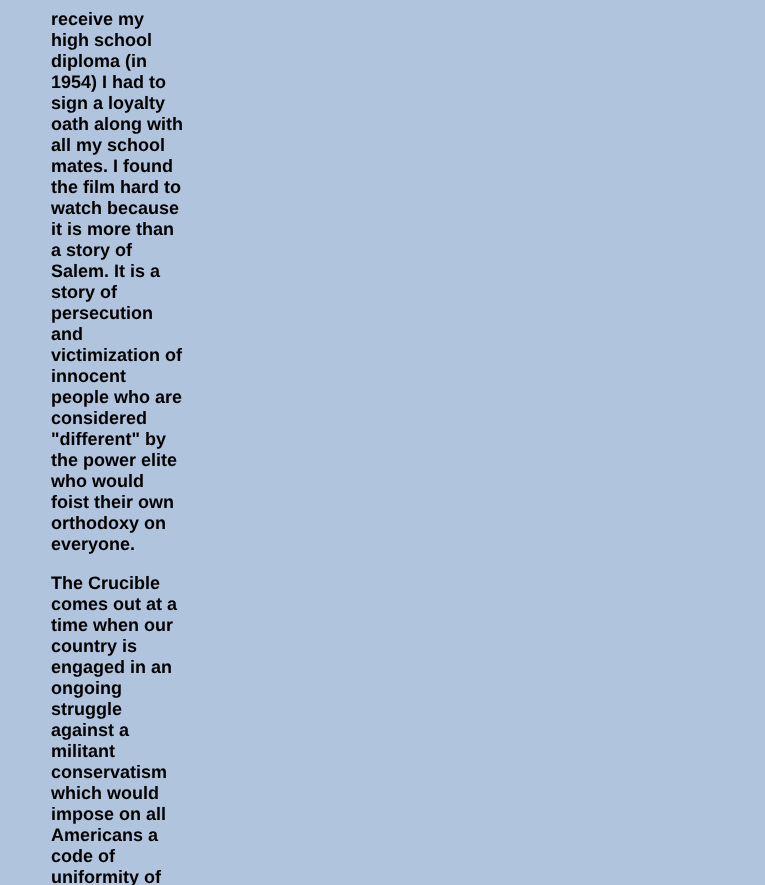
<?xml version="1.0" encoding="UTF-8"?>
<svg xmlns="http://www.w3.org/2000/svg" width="765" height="885">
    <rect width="100%" height="100%" fill="#B0C4DE"/>
    <text font-family="Liberation Sans" font-size="18" font-weight="700" fill="#000000">
        <tspan x="51" y="25">receive my</tspan>
        <tspan x="51" y="46">high school</tspan>
        <tspan x="51" y="67">diploma (in</tspan>
        <tspan x="51" y="88">1954) I had to</tspan>
        <tspan x="51" y="109">sign a loyalty</tspan>
        <tspan x="51" y="130">oath along with</tspan>
        <tspan x="51" y="151">all my school</tspan>
        <tspan x="51" y="172">mates. I found</tspan>
        <tspan x="51" y="193">the film hard to</tspan>
        <tspan x="51" y="214">watch because</tspan>
        <tspan x="51" y="235">it is more than</tspan>
        <tspan x="51" y="256">a story of</tspan>
        <tspan x="51" y="277">Salem. It is a</tspan>
        <tspan x="51" y="298">story of</tspan>
        <tspan x="51" y="319">persecution</tspan>
        <tspan x="51" y="340">and</tspan>
        <tspan x="51" y="361">victimization of</tspan>
        <tspan x="51" y="382">innocent</tspan>
        <tspan x="51" y="403">people who are</tspan>
        <tspan x="51" y="424">considered</tspan>
        <tspan x="51" y="445">"different" by</tspan>
        <tspan x="51" y="466">the power elite</tspan>
        <tspan x="51" y="487">who would</tspan>
        <tspan x="51" y="508">foist their own</tspan>
        <tspan x="51" y="529">orthodoxy on</tspan>
        <tspan x="51" y="550">everyone.</tspan>
    </text>
    <text font-family="Liberation Sans" font-size="18" font-weight="700" fill="#000000">
        <tspan x="51" y="589">The Crucible</tspan>
        <tspan x="51" y="610">comes out at a</tspan>
        <tspan x="51" y="631">time when our</tspan>
        <tspan x="51" y="652">country is</tspan>
        <tspan x="51" y="673">engaged in an</tspan>
        <tspan x="51" y="694">ongoing</tspan>
        <tspan x="51" y="715">struggle</tspan>
        <tspan x="51" y="736">against a</tspan>
        <tspan x="51" y="757">militant</tspan>
        <tspan x="51" y="778">conservatism</tspan>
        <tspan x="51" y="799">which would</tspan>
        <tspan x="51" y="820">impose on all</tspan>
        <tspan x="51" y="841">Americans a</tspan>
        <tspan x="51" y="862">code of</tspan>
        <tspan x="51" y="883">uniformity of</tspan>
    </text>
</svg>
